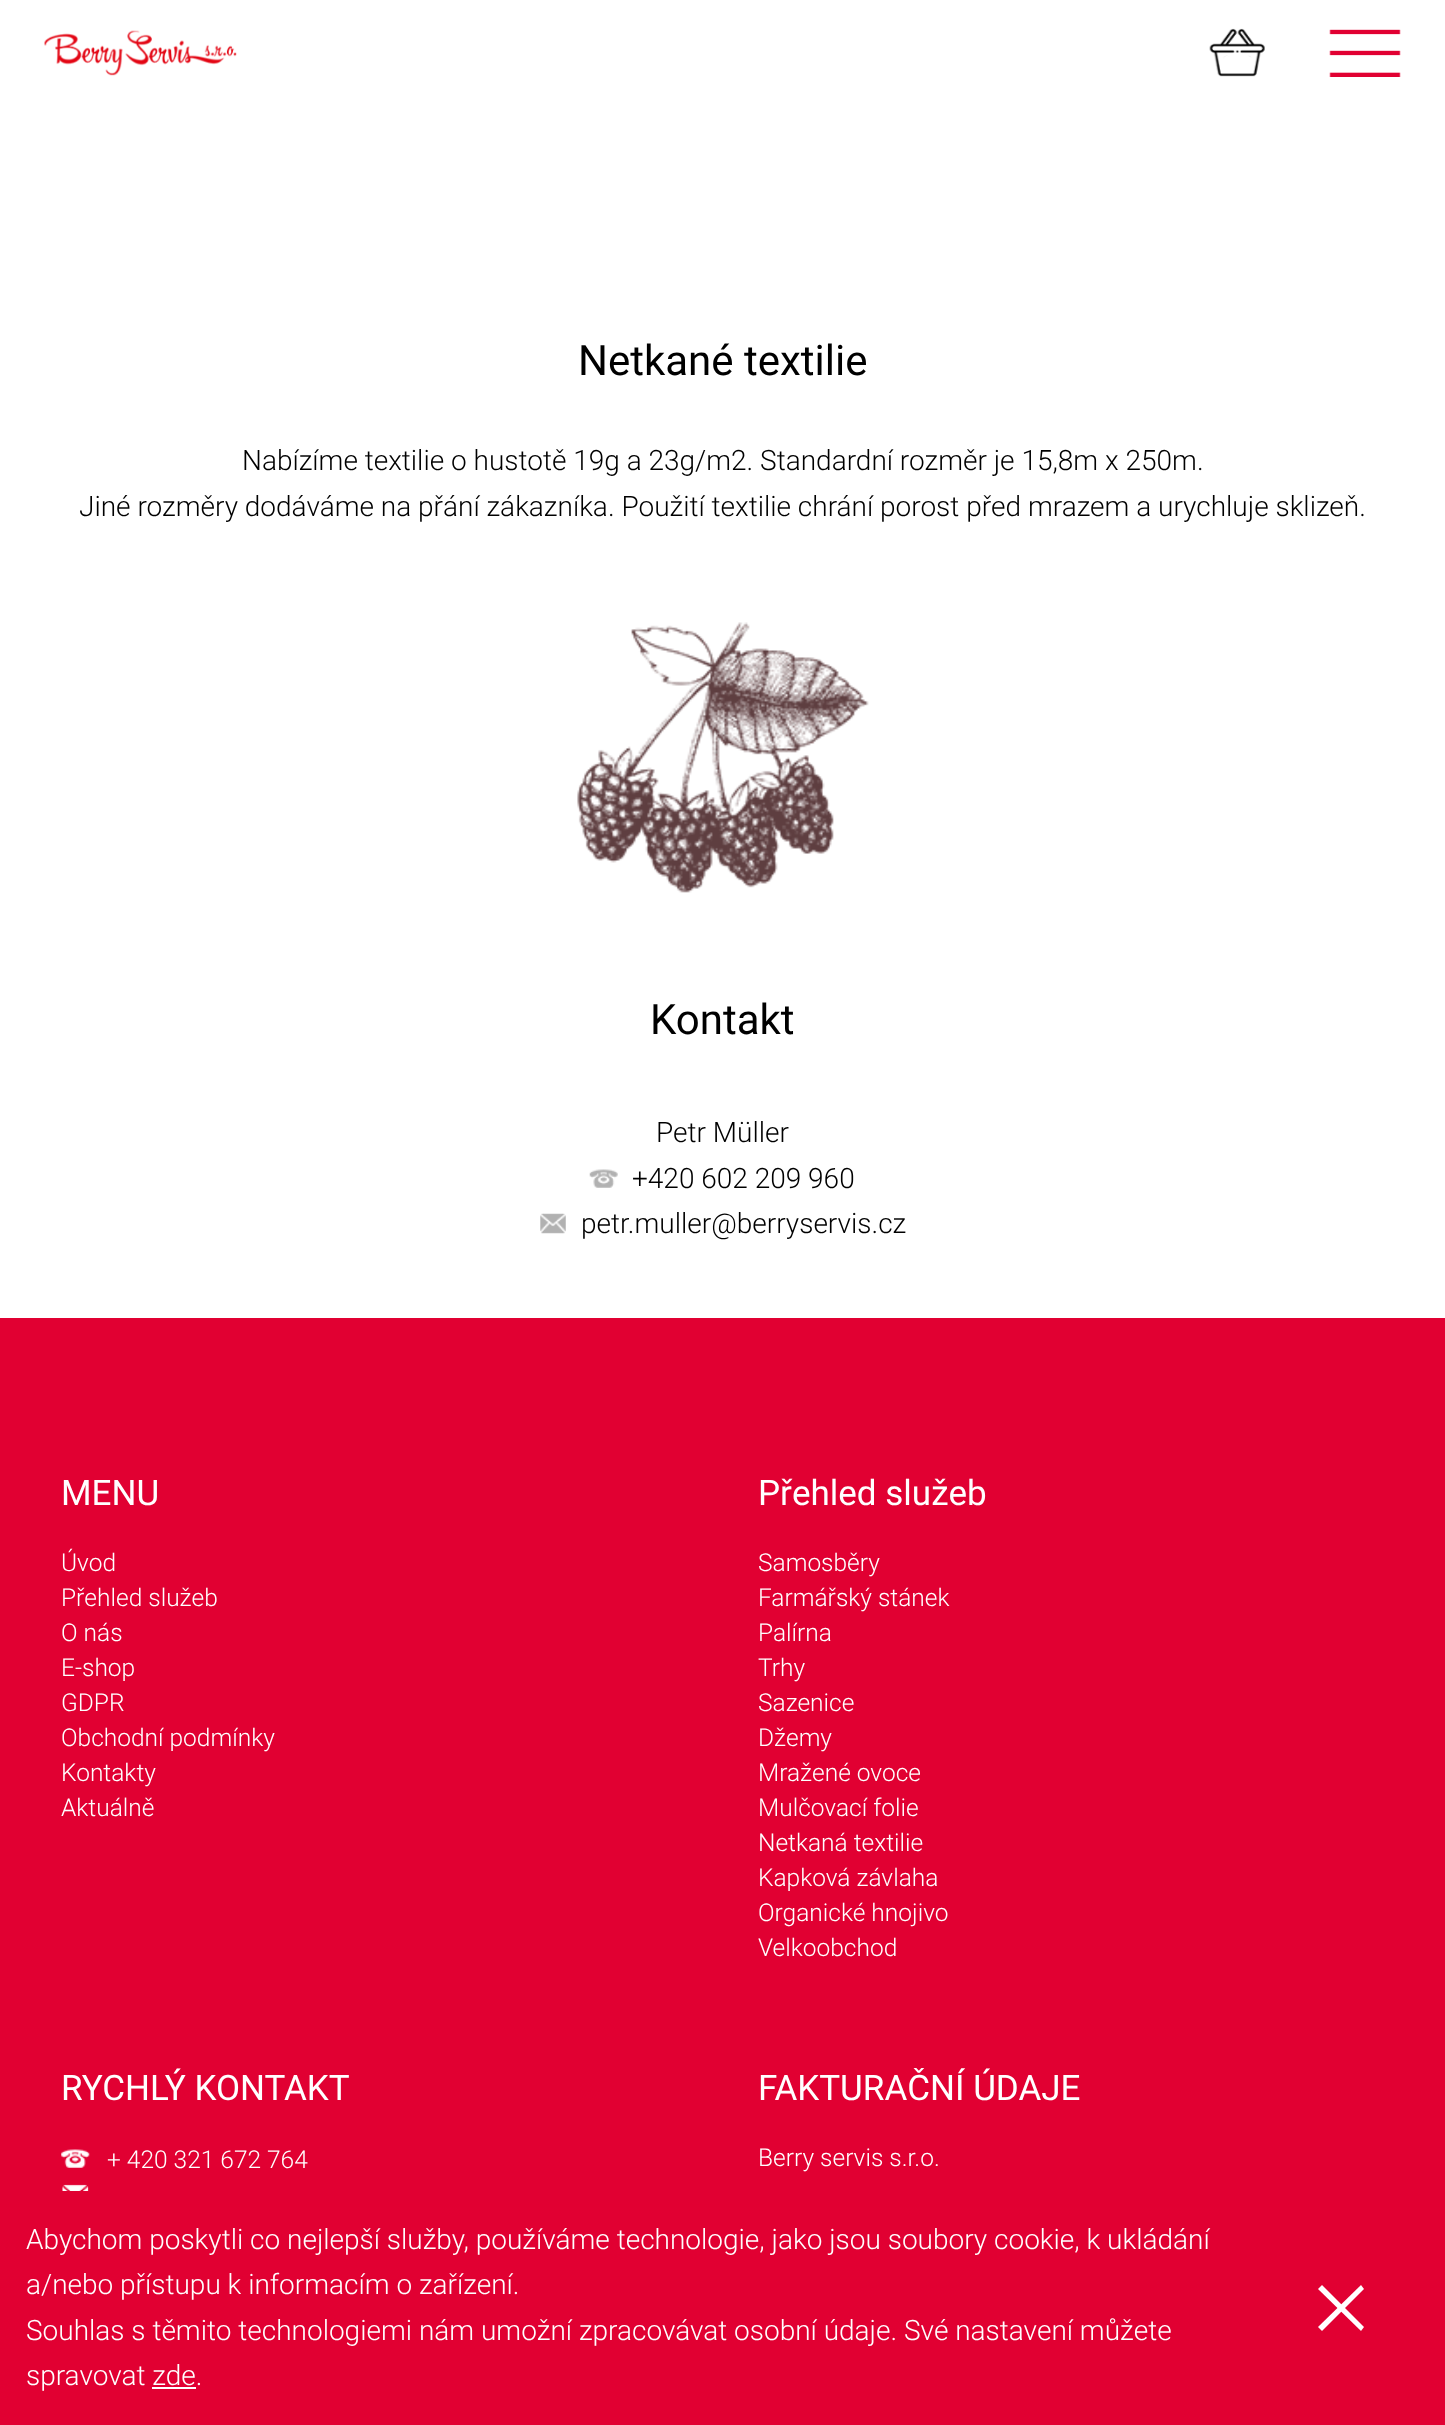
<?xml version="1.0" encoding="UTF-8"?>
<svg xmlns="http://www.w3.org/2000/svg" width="1445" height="2425">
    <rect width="100%" height="100%" fill="#FFFFFF"/>
    <image x="44" y="30" width="193" height="46" href="img_01.png"/>
    <image x="1209" y="28" width="56" height="49" href="img_02.png"/>
    <image x="1329" y="29" width="72" height="48" href="img_03.png"/>
    <text x="578" y="375" font-family="Roboto" font-size="42" fill="#000000">Netkané textilie</text>
    <text x="242" y="470" font-family="Roboto" font-size="28" font-weight="300" fill="#000000">Nabízíme textilie o hustotě 19g a 23g/m2. Standardní rozměr je 15,8m x 250m.</text>
    <text x="79" y="516" font-family="Roboto" font-size="28" font-weight="300" fill="#000000">Jiné rozměry dodáváme na přání zákazníka. Použití textilie chrání porost před mrazem a urychluje sklizeň.</text>
    <image x="577" y="622" width="292" height="271" href="img_04.png"/>
    <text x="650" y="1034" font-family="Roboto" font-size="42" fill="#000000">Kontakt</text>
    <text x="656" y="1142" font-family="Roboto" font-size="28" font-weight="300" fill="#000000">Petr Müller</text>
    <image x="589" y="1169" width="29" height="19" href="img_05.png"/>
    <text x="632" y="1188" font-family="Roboto" font-size="28" font-weight="300" fill="#000000">+420 602 209 960</text>
    <image x="540" y="1213" width="26" height="21" href="img_06.png"/>
    <text x="581" y="1233" font-family="Roboto" font-size="28" font-weight="300" fill="#000000">petr.muller@berryservis.cz</text>
    <rect x="0" y="1318" width="1445" height="1107" fill="#E10032"/>
    <text x="61" y="1505" font-family="Roboto" font-size="35" fill="#FFFFFF">MENU</text>
    <text font-family="Roboto" font-size="24.5" font-weight="300" fill="#FFFFFF">
        <tspan x="61" y="1571">Úvod</tspan>
        <tspan x="61" y="1606">Přehled služeb</tspan>
        <tspan x="61" y="1641">O nás</tspan>
        <tspan x="61" y="1676">E-shop</tspan>
        <tspan x="61" y="1711">GDPR</tspan>
        <tspan x="61" y="1746">Obchodní podmínky</tspan>
        <tspan x="61" y="1781">Kontakty</tspan>
        <tspan x="61" y="1816">Aktuálně</tspan>
    </text>
    <text x="758" y="1505" font-family="Roboto" font-size="35" fill="#FFFFFF">Přehled služeb</text>
    <text font-family="Roboto" font-size="24.5" font-weight="300" fill="#FFFFFF">
        <tspan x="758" y="1571">Samosběry</tspan>
        <tspan x="758" y="1606">Farmářský stánek</tspan>
        <tspan x="758" y="1641">Palírna</tspan>
        <tspan x="758" y="1676">Trhy</tspan>
        <tspan x="758" y="1711">Sazenice</tspan>
        <tspan x="758" y="1746">Džemy</tspan>
        <tspan x="758" y="1781">Mražené ovoce</tspan>
        <tspan x="758" y="1816">Mulčovací folie</tspan>
        <tspan x="758" y="1851">Netkaná textilie</tspan>
        <tspan x="758" y="1886">Kapková závlaha</tspan>
        <tspan x="758" y="1921">Organické hnojivo</tspan>
        <tspan x="758" y="1956">Velkoobchod</tspan>
    </text>
    <text x="61" y="2100" font-family="Roboto" font-size="35" fill="#FFFFFF">RYCHLÝ KONTAKT</text>
    <image x="61" y="2149" width="29" height="19" href="img_07.png"/>
    <text x="107" y="2168" font-family="Roboto" font-size="24.5" font-weight="300" fill="#FFFFFF">+ 420 321 672 764</text>
    <image x="62" y="2184" width="27" height="7" href="img_08.png"/>
    <text x="758" y="2100" font-family="Roboto" font-size="35" fill="#FFFFFF">FAKTURAČNÍ ÚDAJE</text>
    <text x="758" y="2166" font-family="Roboto" font-size="24.5" font-weight="300" fill="#FFFFFF">Berry servis s.r.o.</text>
    <text font-family="Roboto" font-size="28" font-weight="300" fill="#FFFFFF">
        <tspan x="26" y="2249">Abychom poskytli co nejlepší služby, používáme technologie, jako jsou soubory cookie, k ukládání</tspan>
        <tspan x="26" y="2294">a/nebo přístupu k informacím o zařízení.</tspan>
        <tspan x="26" y="2340">Souhlas s těmito technologiemi nám umožní zpracovávat osobní údaje. Své nastavení můžete</tspan>
        <tspan x="26" y="2385">spravovat zde.</tspan>
    </text>
    <rect x="152" y="2387" width="44" height="2" fill="#FFFFFF"/>
    <path d="M 1361 2285 L 1364 2289 L 1322 2331 L 1318 2327 Z" fill="#FFFFFF"/>
    <path d="M 1318 2289 L 1322 2285 L 1364 2327 L 1361 2331 Z" fill="#FFFFFF"/>
</svg>
